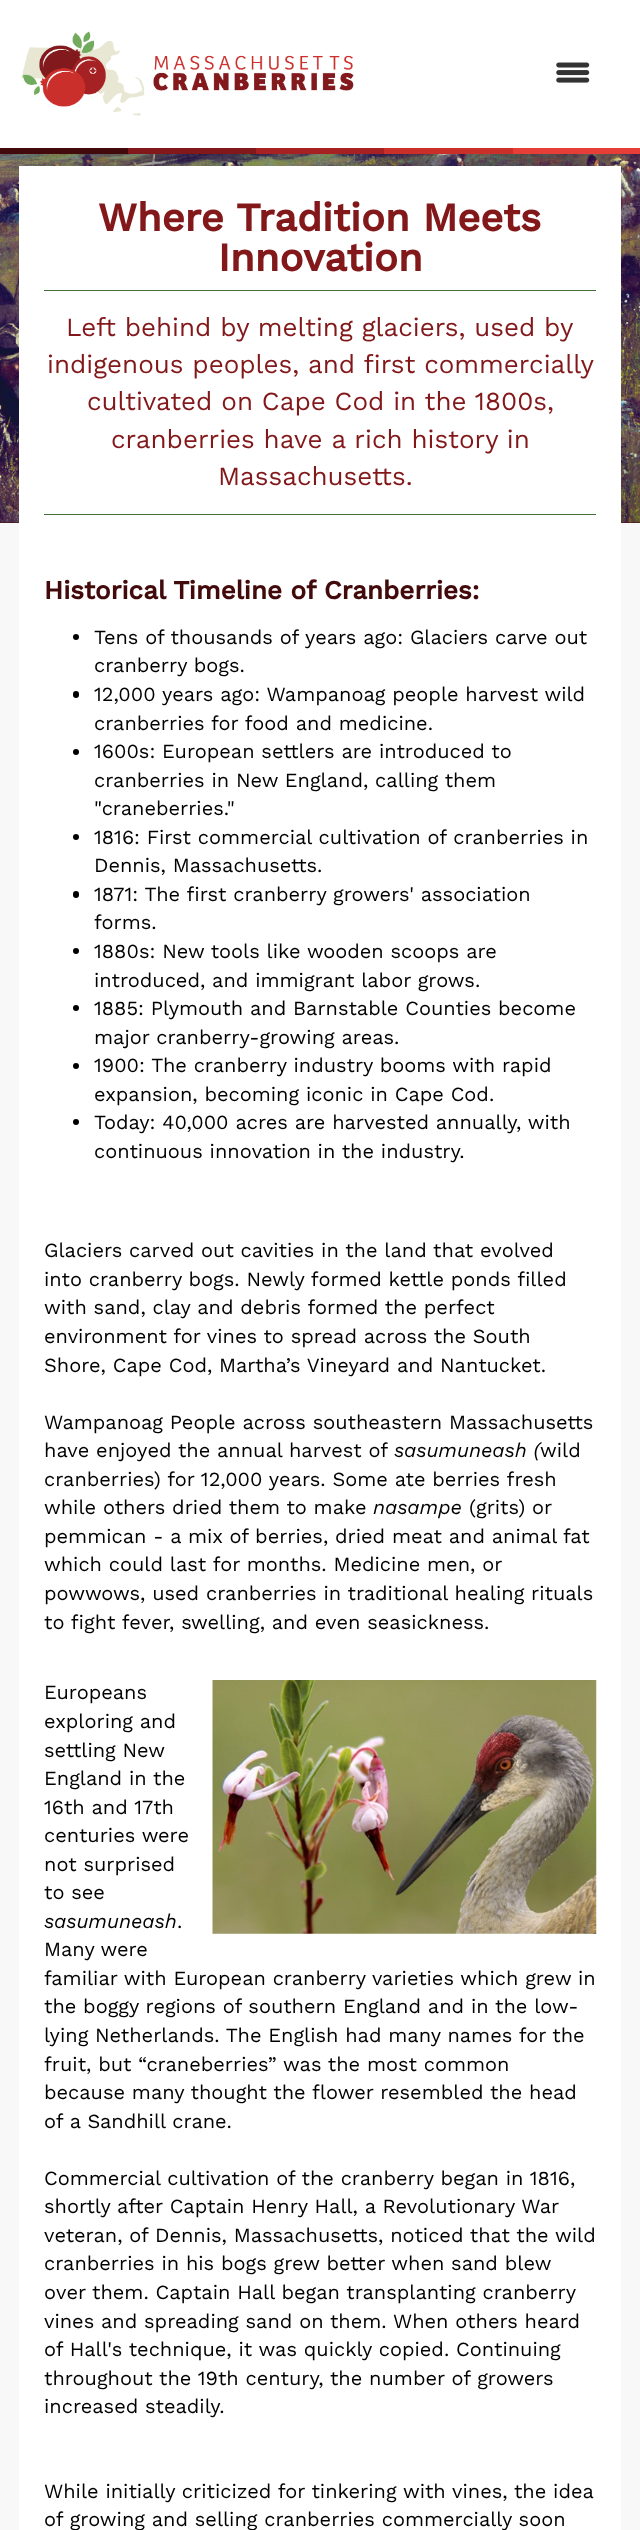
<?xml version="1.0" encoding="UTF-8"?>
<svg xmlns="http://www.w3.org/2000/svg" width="640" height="2530">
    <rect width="100%" height="100%" fill="#F8F8F8"/>
    <rect x="0" y="0" width="640" height="148" fill="#FFFFFF"/>
    <image x="21" y="31" width="333" height="85" href="img_01.png"/>
    <image x="556" y="62" width="34" height="21" href="img_02.png"/>
    <rect x="0" y="148" width="128" height="6" fill="#420A0B"/>
    <rect x="128" y="148" width="128" height="6" fill="#82181A"/>
    <rect x="256" y="148" width="128" height="6" fill="#A72122"/>
    <rect x="384" y="148" width="129" height="6" fill="#CA2F2A"/>
    <rect x="513" y="148" width="127" height="6" fill="#E83E38"/>
    <rect x="0" y="522" width="640" height="1" fill="#420A0B"/>
    <image x="0" y="154" width="640" height="369" href="img_03.png"/>
    <rect x="19" y="166" width="602" height="2364" fill="#FFFFFF"/>
    <rect x="44" y="290" width="552" height="1" fill="#446E3A"/>
    <text x="98" y="231" font-family="Work Sans" font-size="40" font-weight="700" fill="#82181A">Where Tradition Meets</text>
    <text x="218" y="271" font-family="Work Sans" font-size="40" font-weight="700" fill="#82181A">Innovation</text>
    <rect x="44" y="514" width="552" height="1" fill="#446E3A"/>
    <text x="66" y="336" font-family="Work Sans" font-size="26" fill="#82181A">Left behind by melting glaciers, used by</text>
    <text x="47" y="373" font-family="Work Sans" font-size="26" fill="#82181A">indigenous peoples, and first commercially</text>
    <text x="87" y="410" font-family="Work Sans" font-size="26" fill="#82181A">cultivated on Cape Cod in the 1800s,</text>
    <text x="111" y="448" font-family="Work Sans" font-size="26" fill="#82181A">cranberries have a rich history in</text>
    <text x="218" y="485" font-family="Work Sans" font-size="26" fill="#82181A">Massachusetts.</text>
    <text x="44" y="599" font-family="Work Sans" font-size="26" font-weight="700" fill="#420A0B">Historical Timeline of Cranberries:</text>
    <circle cx="76" cy="637" r="3" fill="#000000"/>
    <text font-family="Work Sans" font-size="20" fill="#000000">
        <tspan x="94" y="644">Tens of thousands of years ago: Glaciers carve out</tspan>
        <tspan x="94" y="672">cranberry bogs.</tspan>
    </text>
    <rect x="73" y="691" width="6" height="7" rx="3" fill="#000000"/>
    <text font-family="Work Sans" font-size="20" fill="#000000">
        <tspan x="94" y="701">12,000 years ago: Wampanoag people harvest wild</tspan>
        <tspan x="94" y="730">cranberries for food and medicine.</tspan>
    </text>
    <circle cx="76" cy="752" r="3" fill="#000000"/>
    <text font-family="Work Sans" font-size="20" fill="#000000">
        <tspan x="94" y="758">1600s: European settlers are introduced to</tspan>
        <tspan x="94" y="787">cranberries in New England, calling them</tspan>
        <tspan x="94" y="815">"craneberries."</tspan>
    </text>
    <circle cx="76" cy="837" r="3" fill="#000000"/>
    <text font-family="Work Sans" font-size="20" fill="#000000">
        <tspan x="94" y="844">1816: First commercial cultivation of cranberries in</tspan>
        <tspan x="94" y="872">Dennis, Massachusetts.</tspan>
    </text>
    <rect x="73" y="891" width="6" height="7" rx="3" fill="#000000"/>
    <text font-family="Work Sans" font-size="20" fill="#000000">
        <tspan x="94" y="901">1871: The first cranberry growers' association</tspan>
        <tspan x="94" y="929">forms.</tspan>
    </text>
    <circle cx="76" cy="951" r="3" fill="#000000"/>
    <text font-family="Work Sans" font-size="20" fill="#000000">
        <tspan x="94" y="958">1880s: New tools like wooden scoops are</tspan>
        <tspan x="94" y="987">introduced, and immigrant labor grows.</tspan>
    </text>
    <circle cx="76" cy="1008" r="3" fill="#000000"/>
    <text font-family="Work Sans" font-size="20" fill="#000000">
        <tspan x="94" y="1015">1885: Plymouth and Barnstable Counties become</tspan>
        <tspan x="94" y="1044">major cranberry-growing areas.</tspan>
    </text>
    <circle cx="76" cy="1066" r="3" fill="#000000"/>
    <text font-family="Work Sans" font-size="20" fill="#000000">
        <tspan x="94" y="1072">1900: The cranberry industry booms with rapid</tspan>
        <tspan x="94" y="1101">expansion, becoming iconic in Cape Cod.</tspan>
    </text>
    <circle cx="76" cy="1122" r="3" fill="#000000"/>
    <text font-family="Work Sans" font-size="20" fill="#000000">
        <tspan x="94" y="1129">Today: 40,000 acres are harvested annually, with</tspan>
        <tspan x="94" y="1158">continuous innovation in the industry.</tspan>
    </text>
    <text font-family="Work Sans" font-size="20" fill="#000000">
        <tspan x="44" y="1257">Glaciers carved out cavities in the land that evolved</tspan>
        <tspan x="44" y="1286">into cranberry bogs. Newly formed kettle ponds filled</tspan>
        <tspan x="44" y="1314">with sand, clay and debris formed the perfect</tspan>
        <tspan x="44" y="1343">environment for vines to spread across the South</tspan>
        <tspan x="44" y="1372">Shore, Cape Cod, Martha’s Vineyard and Nantucket.</tspan>
    </text>
    <text font-family="Work Sans" font-size="20" fill="#000000">
        <tspan x="44" y="1429">Wampanoag People across southeastern Massachusetts</tspan>
        <tspan x="44" y="1457">have enjoyed the annual harvest of</tspan>
    </text>
    <text x="394" y="1457" font-family="Work Sans" font-size="20" font-style="italic" fill="#000000">sasumuneash (</text>
    <text x="540" y="1457" font-family="Work Sans" font-size="20" fill="#000000">wild</text>
    <text font-family="Work Sans" font-size="20" fill="#000000">
        <tspan x="44" y="1486">cranberries) for 12,000 years. Some ate berries fresh</tspan>
        <tspan x="44" y="1514">while others dried them to make</tspan>
    </text>
    <text x="373" y="1514" font-family="Work Sans" font-size="20" font-style="italic" fill="#000000">nasampe</text>
    <text x="469" y="1514" font-family="Work Sans" font-size="20" fill="#000000">(grits) or</text>
    <text font-family="Work Sans" font-size="20" fill="#000000">
        <tspan x="44" y="1543">pemmican - a mix of berries, dried meat and animal fat</tspan>
        <tspan x="44" y="1571">which could last for months. Medicine men, or</tspan>
        <tspan x="44" y="1600">powwows, used cranberries in traditional healing rituals</tspan>
        <tspan x="44" y="1629">to fight fever, swelling, and even seasickness.</tspan>
    </text>
    <text x="44" y="1699" font-family="Work Sans" font-size="20" fill="#000000">Europeans</text>
    <image x="212" y="1680" width="385" height="254" href="img_04.png"/>
    <text font-family="Work Sans" font-size="20" fill="#000000">
        <tspan x="44" y="1728">exploring and</tspan>
        <tspan x="44" y="1757">settling New</tspan>
        <tspan x="44" y="1785">England in the</tspan>
        <tspan x="44" y="1814">16th and 17th</tspan>
        <tspan x="44" y="1842">centuries were</tspan>
        <tspan x="44" y="1871">not surprised</tspan>
        <tspan x="44" y="1899">to see</tspan>
    </text>
    <text x="44" y="1928" font-family="Work Sans" font-size="20" font-style="italic" fill="#000000">sasumuneash</text>
    <text x="177" y="1928" font-family="Work Sans" font-size="20" fill="#000000">.</text>
    <text font-family="Work Sans" font-size="20" fill="#000000">
        <tspan x="44" y="1956">Many were</tspan>
        <tspan x="44" y="1985">familiar with European cranberry varieties which grew in</tspan>
        <tspan x="44" y="2013">the boggy regions of southern England and in the low-</tspan>
        <tspan x="44" y="2042">lying Netherlands. The English had many names for the</tspan>
        <tspan x="44" y="2071">fruit, but “craneberries” was the most common</tspan>
        <tspan x="44" y="2099">because many thought the flower resembled the head</tspan>
        <tspan x="44" y="2128">of a Sandhill crane.</tspan>
    </text>
    <text font-family="Work Sans" font-size="20" fill="#000000">
        <tspan x="44" y="2185">Commercial cultivation of the cranberry began in 1816,</tspan>
        <tspan x="44" y="2213">shortly after Captain Henry Hall, a Revolutionary War</tspan>
        <tspan x="44" y="2242">veteran, of Dennis, Massachusetts, noticed that the wild</tspan>
        <tspan x="44" y="2270">cranberries in his bogs grew better when sand blew</tspan>
        <tspan x="44" y="2299">over them. Captain Hall began transplanting cranberry</tspan>
        <tspan x="44" y="2328">vines and spreading sand on them. When others heard</tspan>
        <tspan x="44" y="2356">of Hall's technique, it was quickly copied. Continuing</tspan>
        <tspan x="44" y="2385">throughout the 19th century, the number of growers</tspan>
        <tspan x="44" y="2413">increased steadily.</tspan>
    </text>
    <text font-family="Work Sans" font-size="20" fill="#000000">
        <tspan x="44" y="2498">While initially criticized for tinkering with vines, the idea</tspan>
        <tspan x="44" y="2526">of growing and selling cranberries commercially soon</tspan>
    </text>
</svg>
